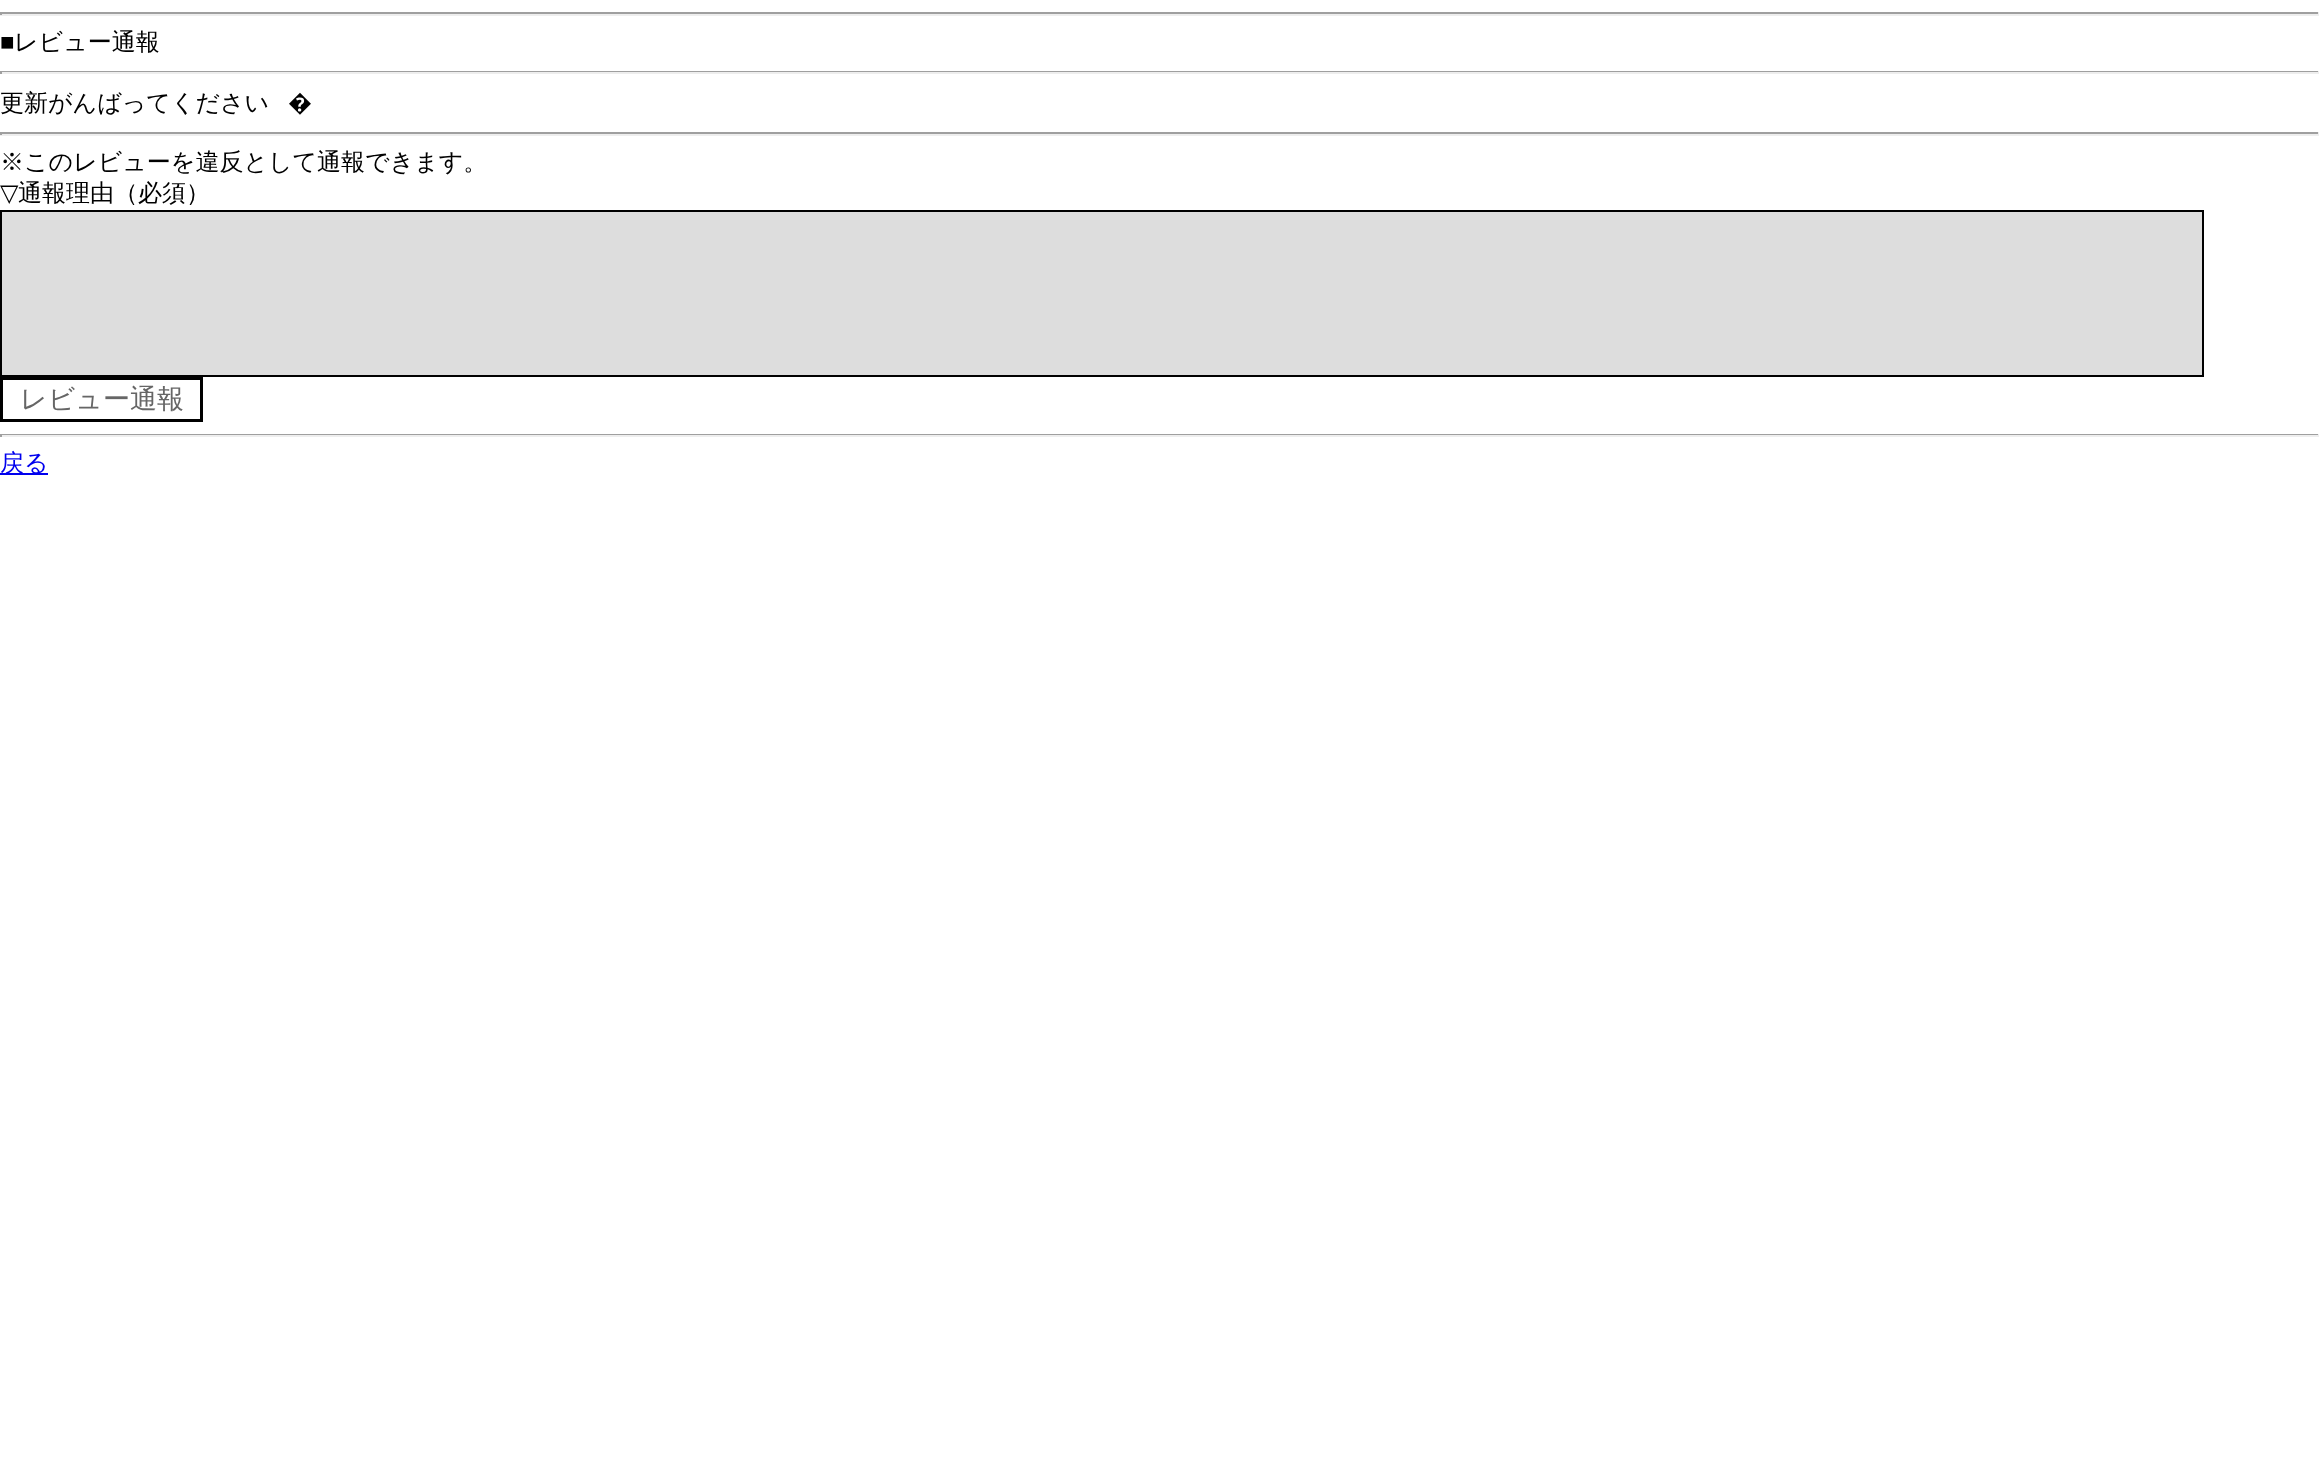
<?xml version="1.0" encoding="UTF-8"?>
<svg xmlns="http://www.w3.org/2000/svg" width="2319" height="1484">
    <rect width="100%" height="100%" fill="#FFFFFF"/>
    <rect x="0" y="12" width="2319" height="2" fill="#9F9F9F"/>
    <rect x="2318" y="12" width="1" height="3" fill="#EEEEEE"/>
    <rect x="0" y="14" width="2319" height="2" fill="#EEEEEE"/>
    <rect x="0" y="12" width="2" height="3" fill="#9F9F9F"/>
    <text x="0" y="50" font-family="Liberation Serif" font-size="24" fill="#000000">■</text>
    <text x="14" y="50" font-family="WenQuanYi Zen Hei" font-size="24" font-weight="500" fill="#000000">レビュー通報</text>
    <rect x="0" y="71" width="2319" height="1" fill="#9F9F9F"/>
    <rect x="2318" y="71" width="1" height="3" fill="#EEEEEE"/>
    <rect x="0" y="72" width="2319" height="2" fill="#EEEEEE"/>
    <rect x="0" y="71" width="2" height="3" fill="#9F9F9F"/>
    <text x="0" y="111" font-family="WenQuanYi Zen Hei" font-size="24" font-weight="500" fill="#000000">更新がんばってください</text>
    <text x="288" y="111" font-family="Noto Sans" font-size="24" fill="#000000">�</text>
    <rect x="0" y="132" width="2319" height="2" fill="#9F9F9F"/>
    <rect x="2318" y="132" width="1" height="3" fill="#EEEEEE"/>
    <rect x="0" y="134" width="2319" height="2" fill="#EEEEEE"/>
    <rect x="0" y="132" width="2" height="3" fill="#9F9F9F"/>
    <text x="0" y="170" font-family="WenQuanYi Zen Hei" font-size="24" font-weight="500" fill="#000000">※このレビューを違反として通報できます。</text>
    <text x="0" y="201" font-family="DejaVu Sans" font-size="24" fill="#000000">▽</text>
    <text x="18" y="201" font-family="WenQuanYi Zen Hei" font-size="24" font-weight="500" fill="#000000">通報理由（必須）</text>
    <rect x="1" y="211" width="2202" height="165" fill="#DDDDDD" stroke="#000000" stroke-width="2"/>
    <rect x="1.5" y="378.5" width="200" height="42" fill="none" stroke="#000000" stroke-width="3"/>
    <text x="20" y="408" font-family="WenQuanYi Zen Hei" font-size="27" font-weight="500" fill="#666666">レビュー通報</text>
    <rect x="0" y="434" width="2319" height="1" fill="#9F9F9F"/>
    <rect x="2318" y="434" width="1" height="3" fill="#EEEEEE"/>
    <rect x="0" y="435" width="2319" height="2" fill="#EEEEEE"/>
    <rect x="0" y="434" width="2" height="3" fill="#9F9F9F"/>
    <rect x="0" y="473" width="48" height="2" fill="#0000EE"/>
    <text x="0" y="471" font-family="WenQuanYi Zen Hei" font-size="24" font-weight="500" fill="#0000EE">戻る</text>
</svg>
